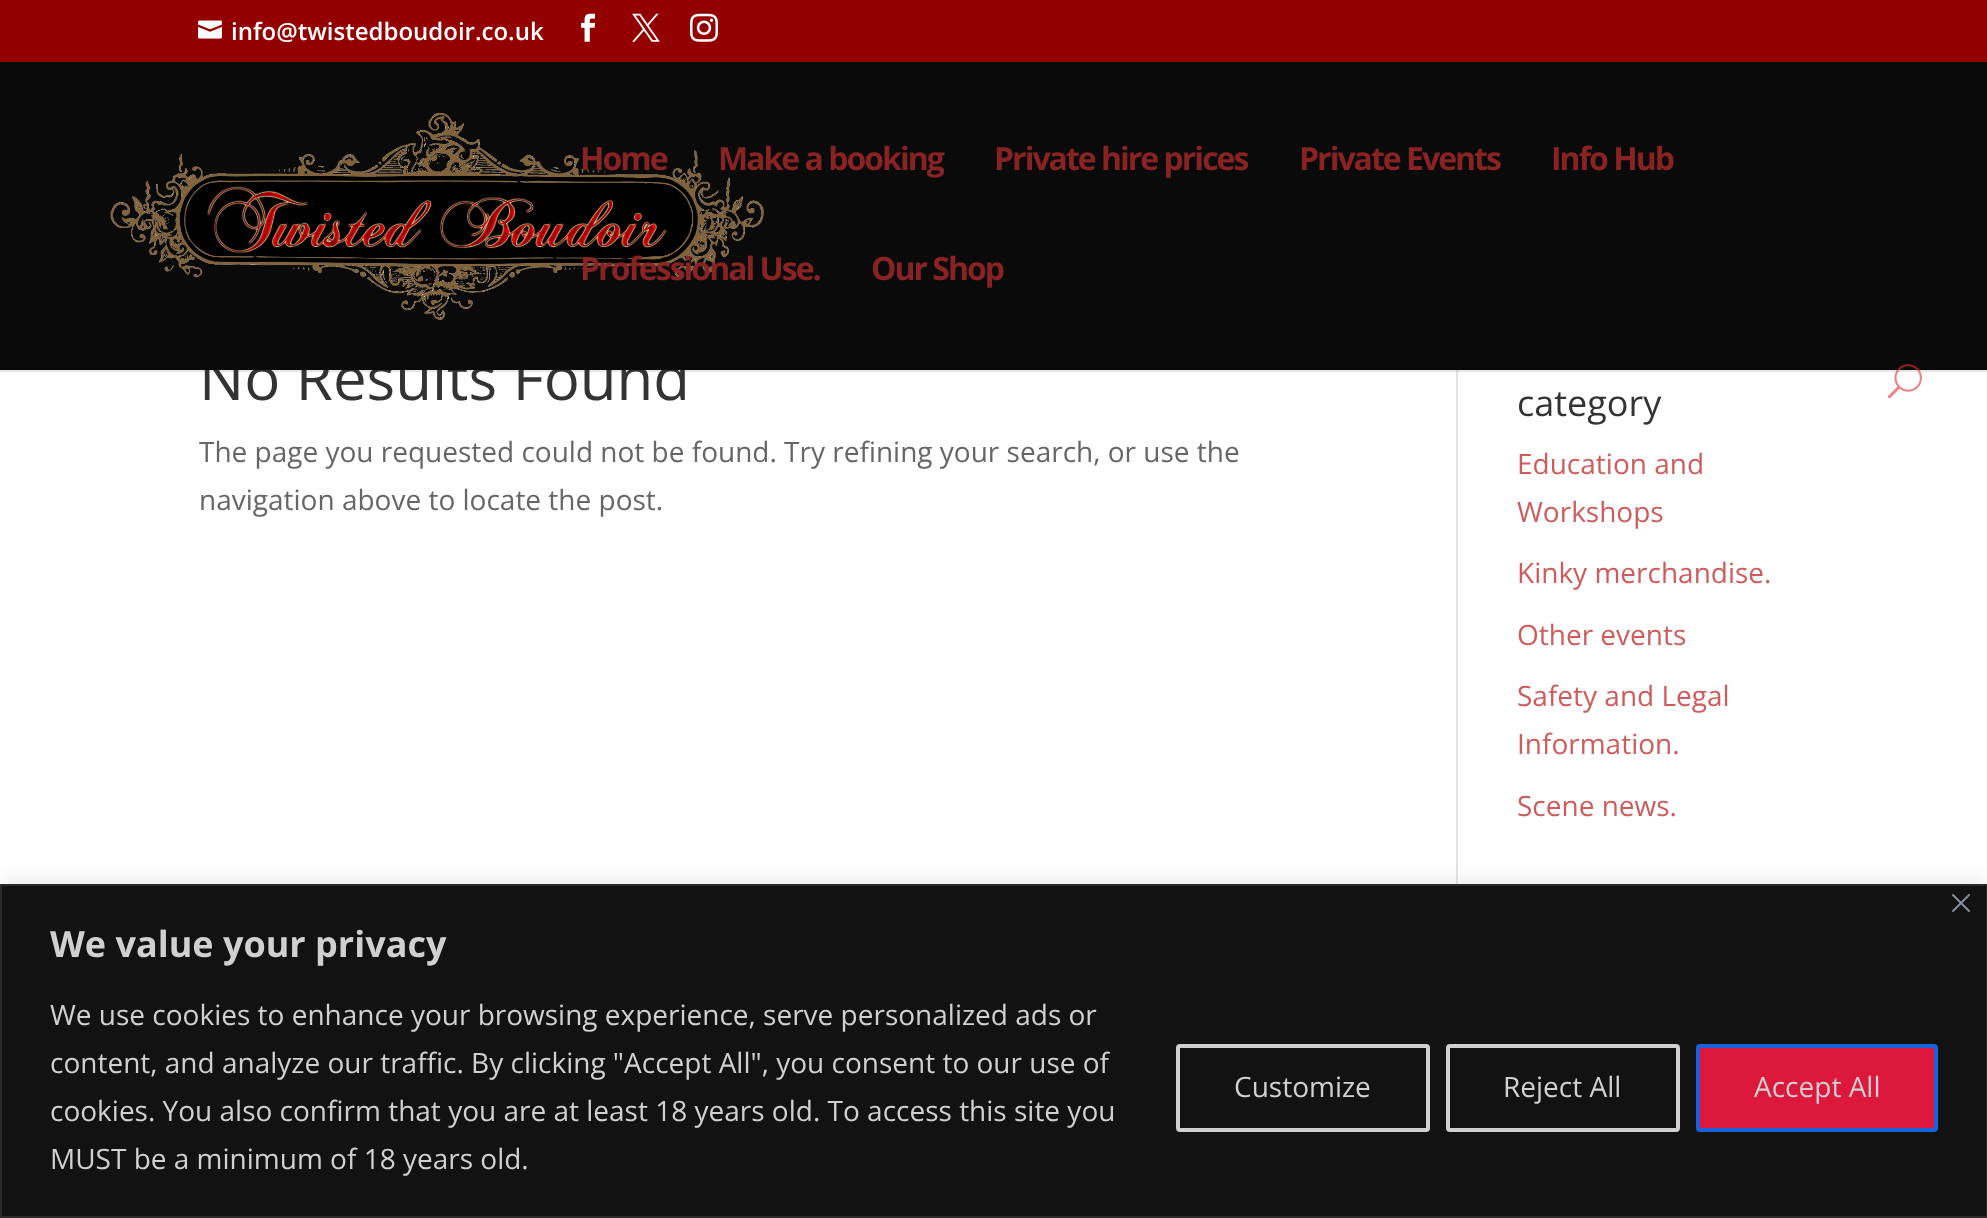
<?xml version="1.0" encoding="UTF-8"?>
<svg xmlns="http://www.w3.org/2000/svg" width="1987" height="1218">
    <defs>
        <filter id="blur1" x="-50%" y="-200%" width="200%" height="500%"><feGaussianBlur stdDeviation="10"/></filter>
    </defs>
    <rect width="100%" height="100%" fill="#FFFFFF"/>
    <rect x="0" y="0" width="1987" height="62" fill="#930000"/>
    <image x="198" y="20" width="24" height="19" href="img_01.png"/>
    <text x="231" y="40" font-family="Open Sans" font-size="24" font-weight="600" fill="#FFFFFF">info@twistedboudoir.co.uk</text>
    <image x="581" y="13" width="15" height="29" href="img_02.png"/>
    <image x="632" y="13" width="28" height="29" href="img_03.png"/>
    <image x="690" y="13" width="28" height="29" href="img_04.png"/>
    <rect x="1456" y="370" width="2" height="514" fill="#E2E2E2"/>
    <rect x="0" y="370" width="1987" height="2" fill="#000000" fill-opacity="0.1"/>
    <text x="199" y="400" font-family="Open Sans" font-size="60" fill="#333333">No Results Found</text>
    <rect x="0" y="62" width="1987" height="308" fill="#0A0A0A"/>
    <image x="110" y="112" width="654" height="208" href="img_05.png"/>
    <text x="580" y="170" font-family="Open Sans" font-size="32" font-weight="700" letter-spacing="-2" fill="#892323">Home</text>
    <text x="718" y="170" font-family="Open Sans" font-size="32" font-weight="700" letter-spacing="-2" fill="#892323">Make a booking</text>
    <text x="994" y="170" font-family="Open Sans" font-size="32" font-weight="700" letter-spacing="-2" fill="#892323">Private hire prices</text>
    <text x="1299" y="170" font-family="Open Sans" font-size="32" font-weight="700" letter-spacing="-2" fill="#892323">Private Events</text>
    <text x="1551" y="170" font-family="Open Sans" font-size="32" font-weight="700" letter-spacing="-2" fill="#892323">Info Hub</text>
    <text x="580" y="280" font-family="Open Sans" font-size="32" font-weight="700" letter-spacing="-2" fill="#892323">Professional Use.</text>
    <text x="871" y="280" font-family="Open Sans" font-size="32" font-weight="700" letter-spacing="-2" fill="#892323">Our Shop</text>
    <image x="1887" y="364" width="35" height="35" href="img_06.png"/>
    <text font-family="Open Sans" font-size="28" fill="#666666">
        <tspan x="199" y="462">The page you requested could not be found. Try refining your search, or use the</tspan>
        <tspan x="199" y="510">navigation above to locate the post.</tspan>
    </text>
    <text x="1517" y="416" font-family="Open Sans" font-size="36" fill="#333333">category</text>
    <text font-family="Open Sans" font-size="28" fill="#CD5C5C">
        <tspan x="1517" y="474">Education and</tspan>
        <tspan x="1517" y="522">Workshops</tspan>
    </text>
    <text x="1517" y="583" font-family="Open Sans" font-size="28" fill="#CD5C5C">Kinky merchandise.</text>
    <text x="1517" y="645" font-family="Open Sans" font-size="28" fill="#CD5C5C">Other events</text>
    <text font-family="Open Sans" font-size="28" fill="#CD5C5C">
        <tspan x="1517" y="706">Safety and Legal</tspan>
        <tspan x="1517" y="754">Information.</tspan>
    </text>
    <text x="1517" y="816" font-family="Open Sans" font-size="28" fill="#CD5C5C">Scene news.</text>
    <rect x="0" y="882" width="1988" height="334" fill="#ACABAB" fill-opacity="0.3" filter="url(#blur1)"/>
    <rect x="1" y="885" width="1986" height="332" fill="#121212" stroke="#2A2A2A" stroke-width="2"/>
    <image x="1952" y="894" width="18" height="18" href="img_07.png"/>
    <text x="50" y="957" font-family="Open Sans" font-size="36" font-weight="700" fill="#D0D0D0">We value your privacy</text>
    <text font-family="Open Sans" font-size="28" fill="#D0D0D0">
        <tspan x="50" y="1025">We use cookies to enhance your browsing experience, serve personalized ads or</tspan>
        <tspan x="50" y="1073">content, and analyze our traffic. By clicking "Accept All", you consent to our use of</tspan>
        <tspan x="50" y="1121">cookies. You also confirm that you are at least 18 years old. To access this site you</tspan>
        <tspan x="50" y="1169">MUST be a minimum of 18 years old.</tspan>
    </text>
    <rect x="1178" y="1046" width="250" height="84" rx="2" fill="none" stroke="#D0D0D0" stroke-width="4"/>
    <text x="1234" y="1097" font-family="Open Sans" font-size="28" fill="#D0D0D0">Customize</text>
    <rect x="1448" y="1046" width="230" height="84" rx="2" fill="none" stroke="#D0D0D0" stroke-width="4"/>
    <text x="1503" y="1097" font-family="Open Sans" font-size="28" fill="#D0D0D0">Reject All</text>
    <rect x="1698" y="1046" width="238" height="84" rx="2" fill="#DC183C" stroke="#1863DC" stroke-width="4"/>
    <text x="1754" y="1097" font-family="Open Sans" font-size="28" fill="#D0D0D0">Accept All</text>
</svg>
